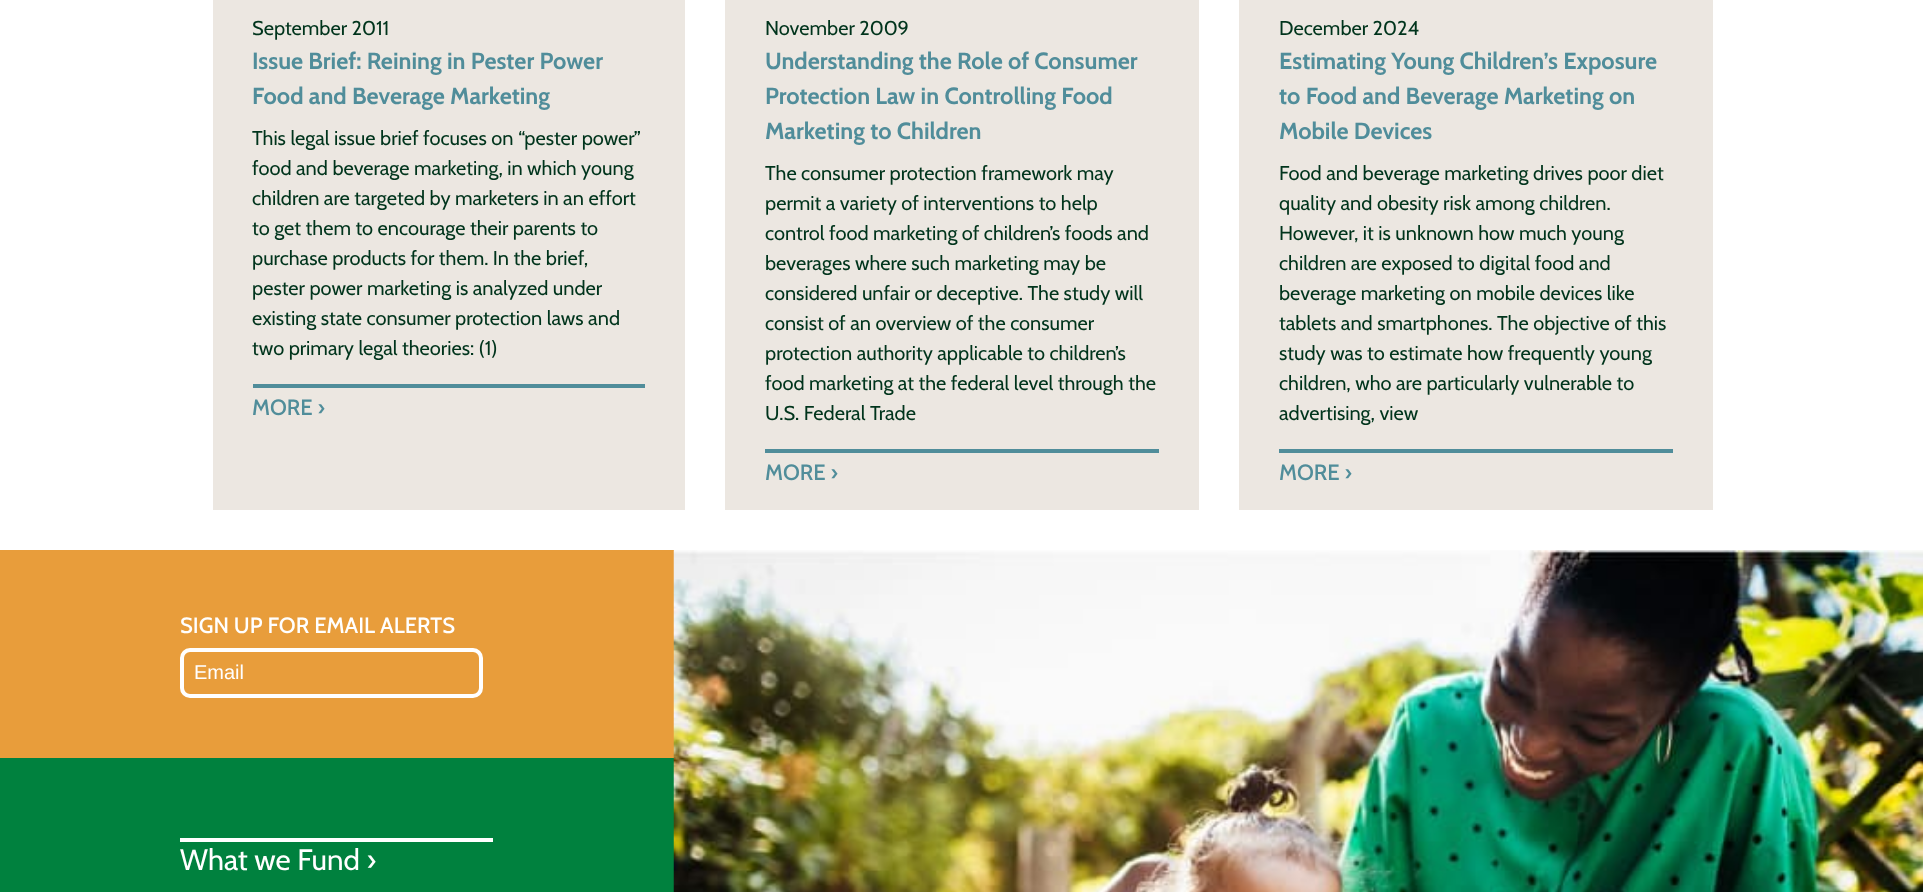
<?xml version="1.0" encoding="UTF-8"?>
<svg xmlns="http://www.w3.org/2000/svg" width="1923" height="892">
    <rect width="100%" height="100%" fill="#FFFFFF"/>
    <rect x="213" y="0" width="472" height="510" fill="#ECE7E1"/>
    <text x="252" y="35" font-family="Cabin" font-size="20" fill="#00341C">September 2011</text>
    <text font-family="Cabin" font-size="23.4" font-weight="700" fill="#508D9A">
        <tspan x="252" y="69">Issue Brief: Reining in Pester Power</tspan>
        <tspan x="252" y="104">Food and Beverage Marketing</tspan>
    </text>
    <text font-family="Cabin" font-size="20" fill="#00341C">
        <tspan x="252" y="145">This legal issue brief focuses on “pester power”</tspan>
        <tspan x="252" y="175">food and beverage marketing, in which young</tspan>
        <tspan x="252" y="205">children are targeted by marketers in an effort</tspan>
        <tspan x="252" y="235">to get them to encourage their parents to</tspan>
        <tspan x="252" y="265">purchase products for them. In the brief,</tspan>
        <tspan x="252" y="295">pester power marketing is analyzed under</tspan>
        <tspan x="252" y="325">existing state consumer protection laws and</tspan>
        <tspan x="252" y="355">two primary legal theories: (1)</tspan>
    </text>
    <rect x="253" y="384" width="392" height="4" fill="#508D9A"/>
    <text x="252" y="415" font-family="Cabin" font-size="22" font-weight="500" fill="#508D9A">MORE ›</text>
    <rect x="725" y="0" width="474" height="510" fill="#ECE7E1"/>
    <text x="765" y="35" font-family="Cabin" font-size="20" fill="#00341C">November 2009</text>
    <text font-family="Cabin" font-size="23.4" font-weight="700" fill="#508D9A">
        <tspan x="765" y="69">Understanding the Role of Consumer</tspan>
        <tspan x="765" y="104">Protection Law in Controlling Food</tspan>
        <tspan x="765" y="139">Marketing to Children</tspan>
    </text>
    <text font-family="Cabin" font-size="20" fill="#00341C">
        <tspan x="765" y="180">The consumer protection framework may</tspan>
        <tspan x="765" y="210">permit a variety of interventions to help</tspan>
        <tspan x="765" y="240">control food marketing of children’s foods and</tspan>
        <tspan x="765" y="270">beverages where such marketing may be</tspan>
        <tspan x="765" y="300">considered unfair or deceptive. The study will</tspan>
        <tspan x="765" y="330">consist of an overview of the consumer</tspan>
        <tspan x="765" y="360">protection authority applicable to children’s</tspan>
        <tspan x="765" y="390">food marketing at the federal level through the</tspan>
        <tspan x="765" y="420">U.S. Federal Trade</tspan>
    </text>
    <rect x="765" y="449" width="394" height="4" fill="#508D9A"/>
    <text x="765" y="480" font-family="Cabin" font-size="22" font-weight="500" fill="#508D9A">MORE ›</text>
    <rect x="1239" y="0" width="474" height="510" fill="#ECE7E1"/>
    <text x="1279" y="35" font-family="Cabin" font-size="20" fill="#00341C">December 2024</text>
    <text font-family="Cabin" font-size="23.4" font-weight="700" fill="#508D9A">
        <tspan x="1279" y="69">Estimating Young Children’s Exposure</tspan>
        <tspan x="1279" y="104">to Food and Beverage Marketing on</tspan>
        <tspan x="1279" y="139">Mobile Devices</tspan>
    </text>
    <text font-family="Cabin" font-size="20" fill="#00341C">
        <tspan x="1279" y="180">Food and beverage marketing drives poor diet</tspan>
        <tspan x="1279" y="210">quality and obesity risk among children.</tspan>
        <tspan x="1279" y="240">However, it is unknown how much young</tspan>
        <tspan x="1279" y="270">children are exposed to digital food and</tspan>
        <tspan x="1279" y="300">beverage marketing on mobile devices like</tspan>
        <tspan x="1279" y="330">tablets and smartphones. The objective of this</tspan>
        <tspan x="1279" y="360">study was to estimate how frequently young</tspan>
        <tspan x="1279" y="390">children, who are particularly vulnerable to</tspan>
        <tspan x="1279" y="420">advertising, view</tspan>
    </text>
    <rect x="1279" y="449" width="394" height="4" fill="#508D9A"/>
    <text x="1279" y="480" font-family="Cabin" font-size="22" font-weight="500" fill="#508D9A">MORE ›</text>
    <rect x="0" y="550" width="674" height="208" fill="#E89D3B"/>
    <text x="180" y="633" font-family="Cabin" font-size="22" font-weight="500" fill="#FFFFFF">SIGN UP FOR EMAIL ALERTS</text>
    <rect x="182" y="650" width="299" height="46" rx="8" fill="none" stroke="#FFFFFF" stroke-width="4"/>
    <text x="194" y="679" font-family="Liberation Sans" font-size="20" fill="#FFFFFF">Email</text>
    <rect x="0" y="758" width="674" height="134" fill="#00813E"/>
    <rect x="180" y="838" width="313" height="4" fill="#FFFFFF"/>
    <text x="180" y="870" font-family="Cabin" font-size="29.5" fill="#FFFFFF">What we Fund ›</text>
    <image x="673" y="550" width="1250" height="342" href="img_01.png"/>
</svg>
